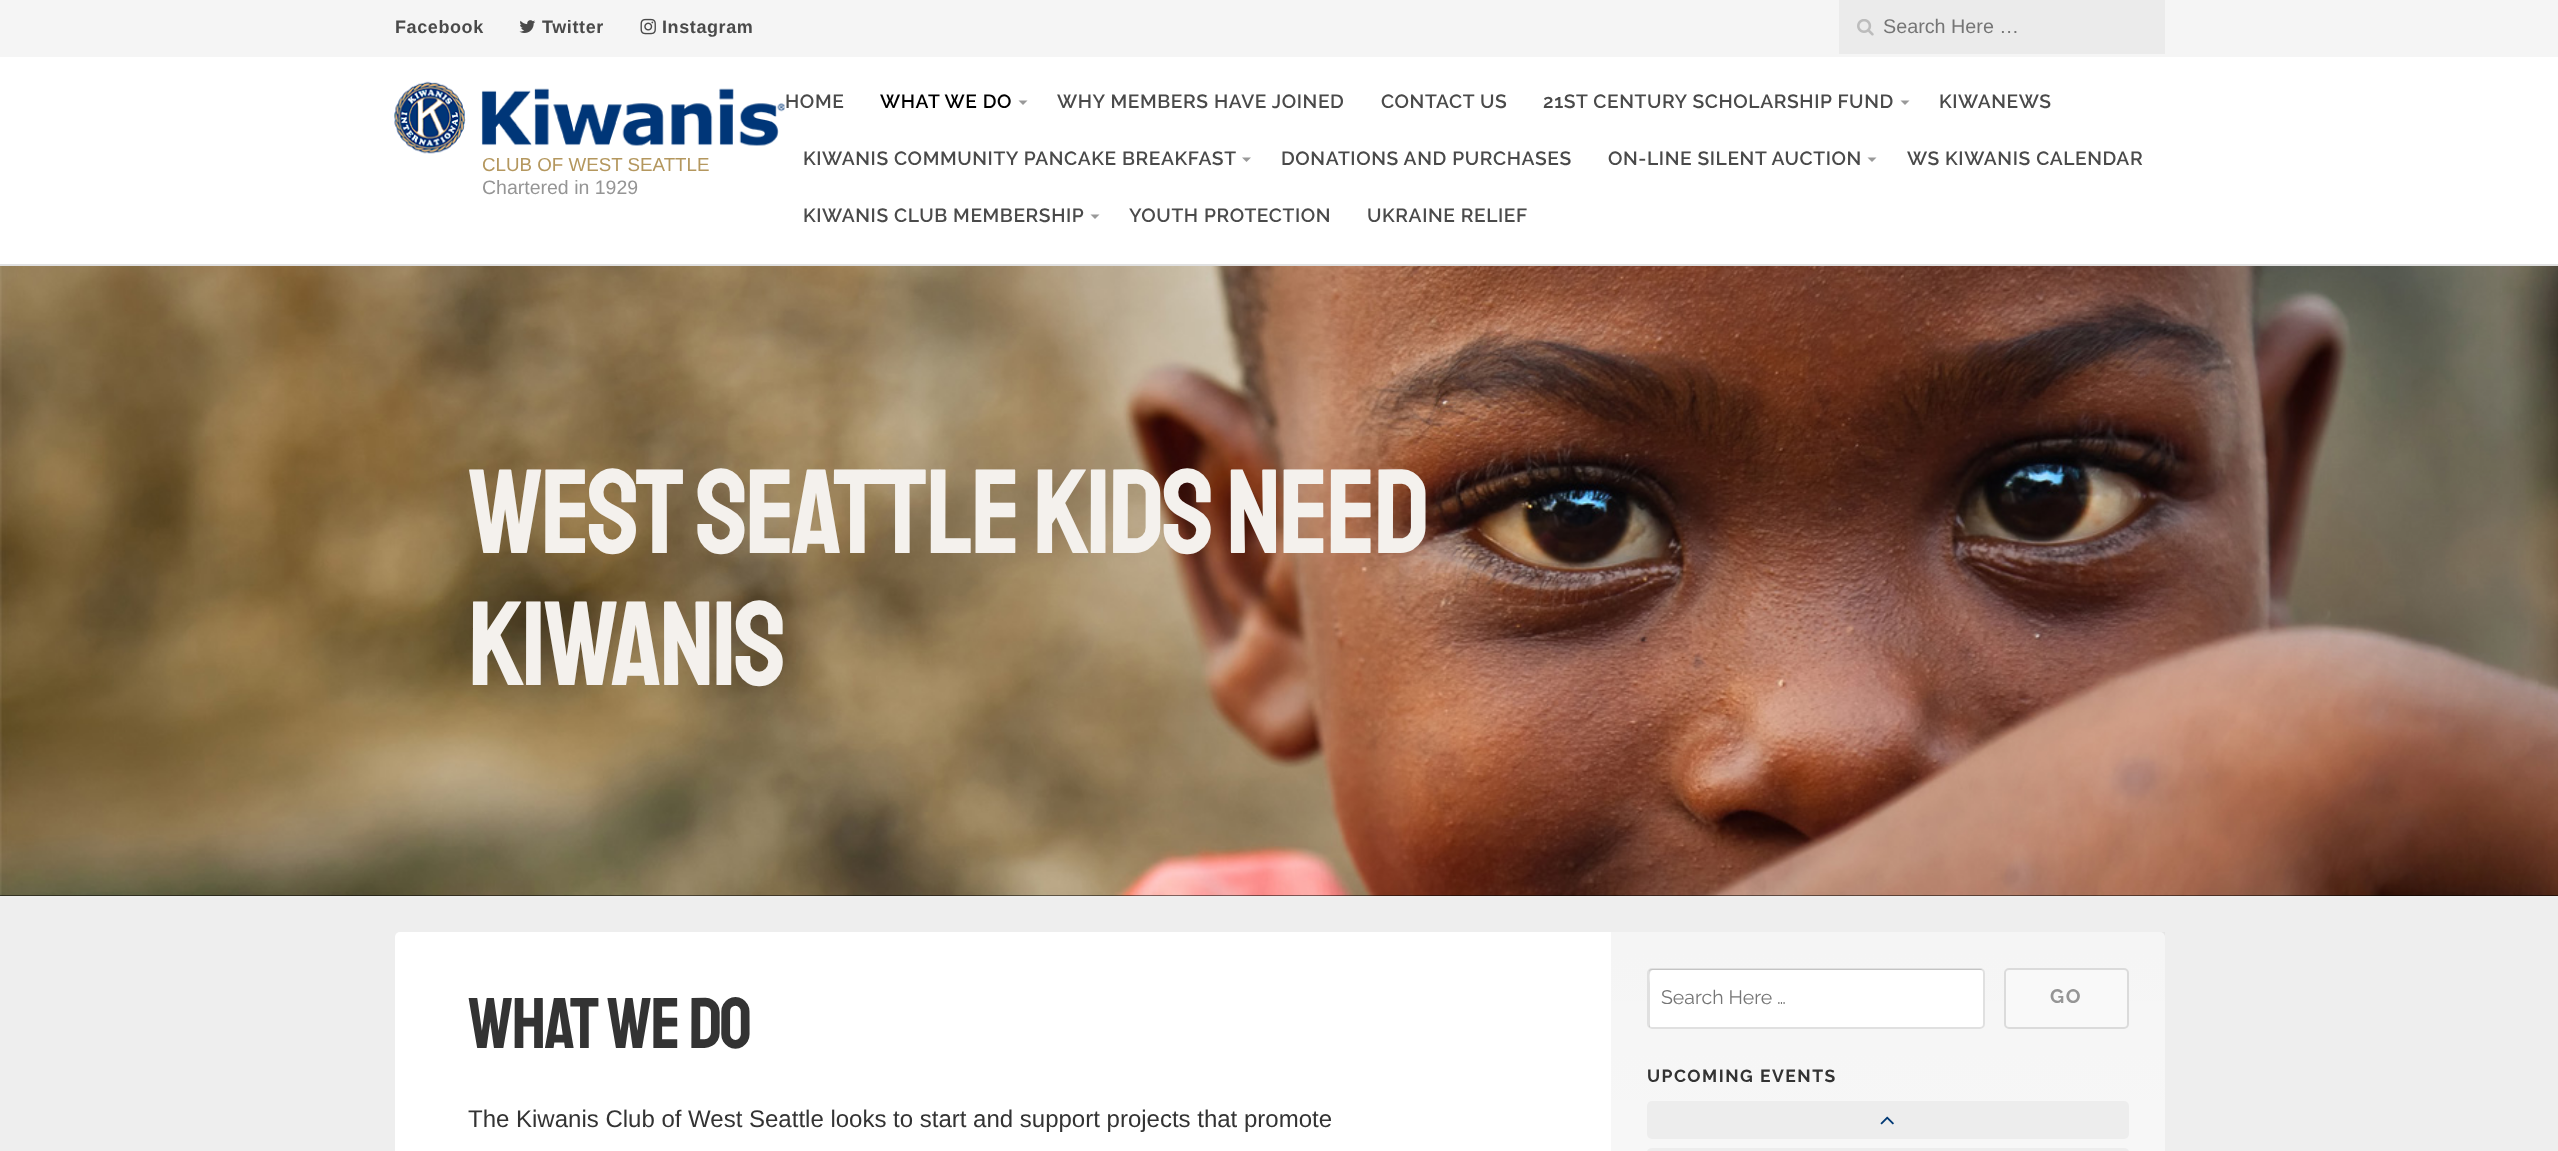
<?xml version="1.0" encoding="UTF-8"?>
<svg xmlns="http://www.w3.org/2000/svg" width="2558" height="1151">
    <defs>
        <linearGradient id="g1" gradientUnits="userSpaceOnUse" x1="1888" y1="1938" x2="1888" y2="932"><stop offset="0" stop-color="#000000" stop-opacity="0"/><stop offset="1" stop-color="#000000" stop-opacity="0.04"/></linearGradient>
    </defs>
    <rect width="100%" height="100%" fill="#EEEEEE"/>
    <rect x="0" y="57" width="2558" height="207" fill="#FFFFFF"/>
    <rect x="0" y="264" width="2558" height="2" fill="#E0E0E0"/>
    <rect x="0" y="0" width="2558" height="57" fill="#F5F5F5"/>
    <text x="395" y="33" font-family="Liberation Sans" font-size="18" font-weight="700" letter-spacing="0.6" fill="#4A4A4A">Facebook</text>
    <image x="519" y="20" width="17" height="13" href="img_01.png"/>
    <text x="542" y="33" font-family="Liberation Sans" font-size="18" font-weight="700" letter-spacing="0.6" fill="#4A4A4A">Twitter</text>
    <image x="640" y="18" width="16" height="17" href="img_02.png"/>
    <text x="662" y="33" font-family="Liberation Sans" font-size="18" font-weight="700" letter-spacing="0.6" fill="#4A4A4A">Instagram</text>
    <rect x="1839" y="0" width="326" height="54" fill="#EBEBEB"/>
    <image x="1857" y="19" width="17" height="17" href="img_03.png"/>
    <text x="1883" y="33" font-family="Liberation Sans" font-size="19.75" fill="#757575">Search Here …</text>
    <image x="394" y="81" width="391" height="73" href="img_04.png"/>
    <text x="482" y="171" font-family="Liberation Sans" font-size="18.75" fill="#B4975E">CLUB OF WEST SEATTLE</text>
    <text x="482" y="194" font-family="Liberation Sans" font-size="19.5" fill="#959595">Chartered in 1929</text>
    <text x="785" y="108" font-family="Raleway" font-size="19.2" font-weight="600" letter-spacing="0.6" fill="#4A4A4A">HOME</text>
    <text x="880" y="108" font-family="Raleway" font-size="19.2" font-weight="600" letter-spacing="0.6" fill="#000000">WHAT WE DO</text>
    <path d="M 1018.5 100.5 H 1027.5 L 1023 105 Z" fill="#999999"/>
    <text x="1057" y="108" font-family="Raleway" font-size="19.2" font-weight="600" letter-spacing="0.6" fill="#4A4A4A">WHY MEMBERS HAVE JOINED</text>
    <text x="1381" y="108" font-family="Raleway" font-size="19.2" font-weight="600" letter-spacing="0.6" fill="#4A4A4A">CONTACT US</text>
    <text x="1543" y="108" font-family="Raleway" font-size="19.2" font-weight="600" letter-spacing="0.6" fill="#4A4A4A">21ST CENTURY SCHOLARSHIP FUND</text>
    <path d="M 1900.5 100.5 H 1909.5 L 1905 105 Z" fill="#999999"/>
    <text x="1939" y="108" font-family="Raleway" font-size="19.2" font-weight="600" letter-spacing="0.6" fill="#4A4A4A">KIWANEWS</text>
    <text x="803" y="165" font-family="Raleway" font-size="19.2" font-weight="600" letter-spacing="0.6" fill="#4A4A4A">KIWANIS COMMUNITY PANCAKE BREAKFAST</text>
    <path d="M 1242 157.5 H 1251 L 1246.5 162 Z" fill="#999999"/>
    <text x="1281" y="165" font-family="Raleway" font-size="19.2" font-weight="600" letter-spacing="0.6" fill="#4A4A4A">DONATIONS AND PURCHASES</text>
    <text x="1608" y="165" font-family="Raleway" font-size="19.2" font-weight="600" letter-spacing="0.6" fill="#4A4A4A">ON-LINE SILENT AUCTION</text>
    <path d="M 1867.5 157.5 H 1876.5 L 1872 162 Z" fill="#999999"/>
    <text x="1907" y="165" font-family="Raleway" font-size="19.2" font-weight="600" letter-spacing="0.6" fill="#4A4A4A">WS KIWANIS CALENDAR</text>
    <text x="803" y="222" font-family="Raleway" font-size="19.2" font-weight="600" letter-spacing="0.6" fill="#4A4A4A">KIWANIS CLUB MEMBERSHIP</text>
    <path d="M 1090.5 214.5 H 1099.5 L 1095 219 Z" fill="#999999"/>
    <text x="1129" y="222" font-family="Raleway" font-size="19.2" font-weight="600" letter-spacing="0.6" fill="#4A4A4A">YOUTH PROTECTION</text>
    <text x="1367" y="222" font-family="Raleway" font-size="19.2" font-weight="600" letter-spacing="0.6" fill="#4A4A4A">UKRAINE RELIEF</text>
    <rect x="0" y="895" width="2558" height="1" fill="#000000"/>
    <image x="0" y="266" width="2558" height="630" href="img_05.png"/>
    <text font-family="Staatliches" font-size="120" letter-spacing="-3" fill="#F4F1ED">
        <tspan x="468" y="553">West Seattle Kids Need</tspan>
        <tspan x="468" y="685">Kiwanis</tspan>
    </text>
    <rect x="395" y="932" width="1770" height="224" rx="5" fill="#FFFFFF"/>
    <text x="468" y="1048" font-family="Staatliches" font-size="72" letter-spacing="-1.5" fill="#333333">What We Do</text>
    <text x="468" y="1127" font-family="Liberation Sans" font-size="24" fill="#333333">The Kiwanis Club of West Seattle looks to start and support projects that promote</text>
    <rect x="1611" y="932" width="554" height="219" fill="url(#g1)"/>
    <rect x="1647" y="968" width="338" height="61" rx="5" fill="#FFFFFF"/>
    <path d="M 1653 970 H 1982 C 1982 969 1981 969 1980 969 H 1652 C 1650 969 1649 970 1649 972 V 1025 C 1649 1026 1649 1027 1650 1027 V 983 C 1650 982 1648 970 1653 970 Z" fill="#E0E0E0"/>
    <rect x="1648" y="969" width="336" height="59" rx="4" fill="none" stroke="#000000" stroke-opacity="0.12" stroke-width="2"/>
    <text x="1661" y="1004" font-family="Raleway" font-size="19.5" fill="#757575">Search Here …</text>
    <rect x="2005" y="969" width="123" height="59" rx="4" fill="#F9F9F9" stroke="#DBDBDB" stroke-width="2"/>
    <text x="2050" y="1003" font-family="Raleway" font-size="19.5" font-weight="700" letter-spacing="1.5" fill="#959595">GO</text>
    <text x="1647" y="1082" font-family="Raleway" font-size="17.5" font-weight="700" letter-spacing="1.5" fill="#333333">UPCOMING EVENTS</text>
    <rect x="1647" y="1101" width="482" height="38" rx="5" fill="#EDEDED"/>
    <image x="1880" y="1116" width="14" height="9" href="img_06.png"/>
    <rect x="1647" y="1148" width="482" height="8" rx="5" fill="#EDEDED"/>
</svg>
